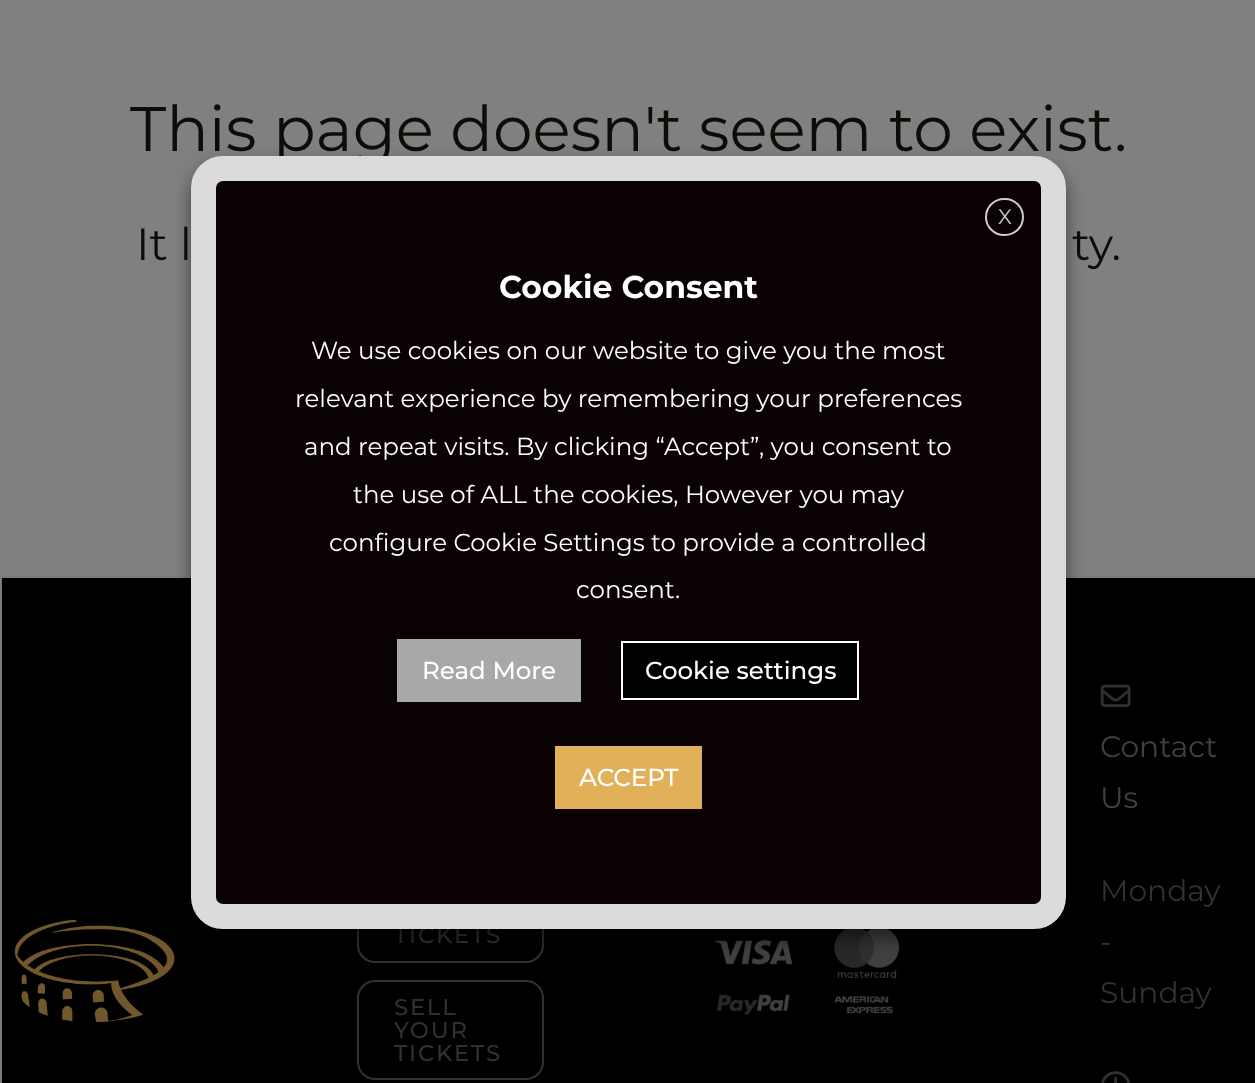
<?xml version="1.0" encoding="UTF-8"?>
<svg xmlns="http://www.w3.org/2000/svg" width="1255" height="1083">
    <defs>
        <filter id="blur1" x="-50%" y="-200%" width="200%" height="500%"><feGaussianBlur stdDeviation="9"/></filter>
    </defs>
    <rect width="100%" height="100%" fill="#808080"/>
    <text x="130" y="151" font-family="Montserrat" font-size="63" fill="#0F0C08">This page doesn't seem to exist.</text>
    <text x="136" y="260" font-family="Montserrat" font-size="45" fill="#0F0C08">It l</text>
    <text x="1072" y="260" font-family="Montserrat" font-size="45" fill="#0F0C08">ty.</text>
    <rect x="0" y="576" width="1255" height="507" fill="#7C7C7A"/>
    <rect x="2" y="578" width="1253" height="505" fill="#000000"/>
    <image x="14" y="919" width="161" height="104" href="img_01.png"/>
    <rect x="358" y="864" width="185" height="98" rx="17" fill="none" stroke="#31312E" stroke-width="2"/>
    <text x="394" y="943" font-family="Montserrat" font-size="22.75" font-weight="500" letter-spacing="1.75" fill="#31312E">TICKETS</text>
    <rect x="358" y="981" width="185" height="98" rx="17" fill="none" stroke="#31312E" stroke-width="2"/>
    <text font-family="Montserrat" font-size="22.75" font-weight="500" letter-spacing="1.75" fill="#31312E">
        <tspan x="394" y="1015">SELL</tspan>
        <tspan x="394" y="1038">YOUR</tspan>
        <tspan x="394" y="1061">TICKETS</tspan>
    </text>
    <image x="714" y="929" width="186" height="86" href="img_02.png"/>
    <image x="1100" y="684" width="31" height="23" href="img_03.png"/>
    <text font-family="Montserrat" font-size="29.75" fill="#404040">
        <tspan x="1100" y="757">Contact</tspan>
        <tspan x="1100" y="808">Us</tspan>
    </text>
    <text font-family="Montserrat" font-size="29.75" fill="#31312E">
        <tspan x="1100" y="901">Monday</tspan>
        <tspan x="1100" y="952">-</tspan>
        <tspan x="1100" y="1003">Sunday</tspan>
    </text>
    <image x="1101" y="1071" width="30" height="12" href="img_04.png"/>
    <rect x="191" y="165" width="875" height="773" rx="32" fill="#000000" fill-opacity="0.5" filter="url(#blur1)"/>
    <rect x="203.5" y="168.5" width="850" height="748" rx="19.5" fill="#0A0202" stroke="#DBDBDB" stroke-width="25"/>
    <rect x="986" y="199" width="37" height="36" rx="18" fill="none" stroke="#CCCCCC" stroke-width="2"/>
    <text x="998" y="224" font-family="Montserrat" font-size="21" fill="#CCCCCC">X</text>
    <text x="499" y="298" font-family="Montserrat" font-size="31.5" font-weight="700" fill="#FFFFFF">Cookie Consent</text>
    <text x="311" y="359" font-family="Montserrat" font-size="24.5" fill="#FFFFFF">We use cookies on our website to give you the most</text>
    <text x="295" y="407" font-family="Montserrat" font-size="24.5" fill="#FFFFFF">relevant experience by remembering your preferences</text>
    <text x="304" y="455" font-family="Montserrat" font-size="24.5" fill="#FFFFFF">and repeat visits. By clicking “Accept”, you consent to</text>
    <text x="353" y="503" font-family="Montserrat" font-size="24.5" fill="#FFFFFF">the use of ALL the cookies, However you may</text>
    <text x="329" y="551" font-family="Montserrat" font-size="24.5" fill="#FFFFFF">configure Cookie Settings to provide a controlled</text>
    <text x="576" y="598" font-family="Montserrat" font-size="24.5" fill="#FFFFFF">consent.</text>
    <rect x="397" y="639" width="184" height="63" fill="#A8A8A8"/>
    <text x="422" y="679" font-family="Montserrat" font-size="24.5" font-weight="500" fill="#FFFFFF">Read More</text>
    <rect x="622" y="642" width="236" height="57" fill="#000000" stroke="#FFFFFF" stroke-width="2"/>
    <text x="645" y="679" font-family="Montserrat" font-size="24.5" font-weight="500" fill="#FFFFFF">Cookie settings</text>
    <rect x="555" y="746" width="147" height="63" fill="#E0B159"/>
    <text x="579" y="786" font-family="Montserrat" font-size="24.5" font-weight="500" fill="#FFFFFF">ACCEPT</text>
</svg>
